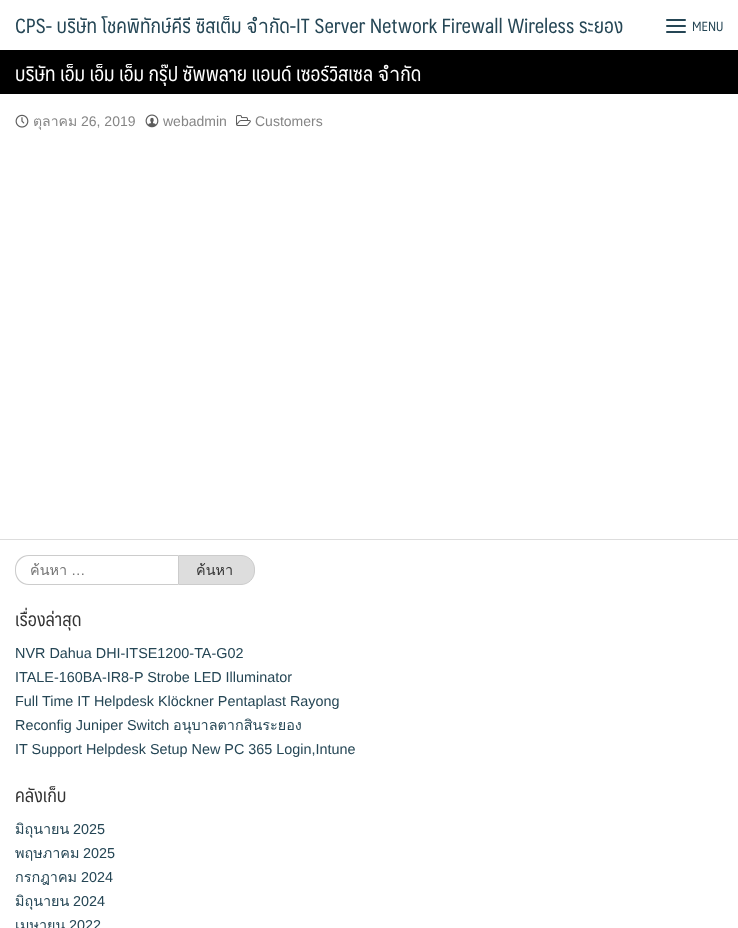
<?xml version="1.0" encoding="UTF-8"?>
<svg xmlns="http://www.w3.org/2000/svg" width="738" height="928">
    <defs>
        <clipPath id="clip1"><rect x="30" y="558" width="138" height="23"/></clipPath>
    </defs>
    <rect width="100%" height="100%" fill="#FFFFFF"/>
    <text x="15" y="33" font-family="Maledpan" font-size="20" fill="#254655">CPS- บริษัท โชคพิทักษ์คีรี ซิสเต็ม จำกัด-IT Server Network Firewall Wireless ระยอง</text>
    <rect x="666" y="19" width="20" height="2" rx="1" fill="#254655"/>
    <rect x="666" y="25" width="20" height="2" rx="1" fill="#254655"/>
    <rect x="666" y="31" width="20" height="2" rx="1" fill="#254655"/>
    <text x="692" y="31" font-family="Maledpan" font-size="13" fill="#254655">MENU</text>
    <rect x="0" y="50" width="738" height="44" fill="#000000"/>
    <text x="15" y="81" font-family="Maledpan" font-size="20" fill="#FFFFFF">บริษัท เอ็ม เอ็ม เอ็ม กรุ๊ป ซัพพลาย แอนด์ เซอร์วิสเซล จำกัด</text>
    <image x="15" y="114" width="14" height="14" href="img_01.png"/>
    <text x="33" y="126" font-family="Loma" font-size="14" fill="#858585">ตุลาคม</text>
    <text x="81" y="126" font-family="Liberation Sans" font-size="14" fill="#858585">26, 2019</text>
    <image x="145" y="114" width="14" height="14" href="img_02.png"/>
    <text x="163" y="126" font-family="Liberation Sans" font-size="14" fill="#858585">webadmin</text>
    <image x="236" y="115" width="15" height="11" href="img_03.png"/>
    <text x="255" y="126" font-family="Liberation Sans" font-size="14" fill="#858585">Customers</text>
    <rect x="0" y="539" width="738" height="1" fill="#DDDDDD"/>
    <path d="M 29 555 H 178 V 585 H 29 C 21 585 15 579 15 571 V 569 C 15 561 21 555 29 555 Z M 29 556 H 178 V 584 H 29 C 22 584 16 578 16 571 V 569 C 16 562 22 556 29 556 Z" fill="#CCCCCC" fill-rule="evenodd"/>
    <g clip-path="url(#clip1)">
        <text x="30" y="575" font-family="Loma" font-size="14.4" fill="#757575">ค้นหา</text>
    </g>
    <text x="71" y="575" font-family="Liberation Sans" font-size="14.4" fill="#757575">…</text>
    <path d="M 178.5 555.5 H 241 C 248.5 555.5 254.5 561.5 254.5 569 V 571 C 254.5 578.5 248.5 584.5 241 584.5 H 178.5 Z" fill="#DDDDDD" stroke="#CCCCCC"/>
    <text x="196" y="575" font-family="Loma" font-size="14.4" fill="#333333">ค้นหา</text>
    <text x="15" y="626" font-family="Maledpan" font-size="18.5" fill="#333333">เรื่องล่าสุด</text>
    <text font-family="Liberation Sans" font-size="14.4" fill="#254655">
        <tspan x="15" y="658">NVR Dahua DHI-ITSE1200-TA-G02</tspan>
        <tspan x="15" y="682">ITALE-160BA-IR8-P Strobe LED Illuminator</tspan>
        <tspan x="15" y="706">Full Time IT Helpdesk Klöckner Pentaplast Rayong</tspan>
        <tspan x="15" y="730">Reconfig Juniper Switch</tspan>
    </text>
    <text x="173" y="730" font-family="Loma" font-size="14.4" fill="#254655">อนุบาลตากสินระยอง</text>
    <text x="15" y="754" font-family="Liberation Sans" font-size="14.4" fill="#254655">IT Support Helpdesk Setup New PC 365 Login,Intune</text>
    <text x="15" y="802" font-family="Maledpan" font-size="18.5" fill="#333333">คลังเก็บ</text>
    <text x="15" y="834" font-family="Loma" font-size="14.4" fill="#254655">มิถุนายน</text>
    <text x="73" y="834" font-family="Liberation Sans" font-size="14.4" fill="#254655">2025</text>
    <text x="15" y="858" font-family="Loma" font-size="14.4" fill="#254655">พฤษภาคม</text>
    <text x="83" y="858" font-family="Liberation Sans" font-size="14.4" fill="#254655">2025</text>
    <text x="15" y="882" font-family="Loma" font-size="14.4" fill="#254655">กรกฎาคม</text>
    <text x="81" y="882" font-family="Liberation Sans" font-size="14.4" fill="#254655">2024</text>
    <text x="15" y="906" font-family="Loma" font-size="14.4" fill="#254655">มิถุนายน</text>
    <text x="73" y="906" font-family="Liberation Sans" font-size="14.4" fill="#254655">2024</text>
    <text x="15" y="930" font-family="Loma" font-size="14.4" fill="#254655">เมษายน</text>
    <text x="69" y="930" font-family="Liberation Sans" font-size="14.4" fill="#254655">2022</text>
</svg>
